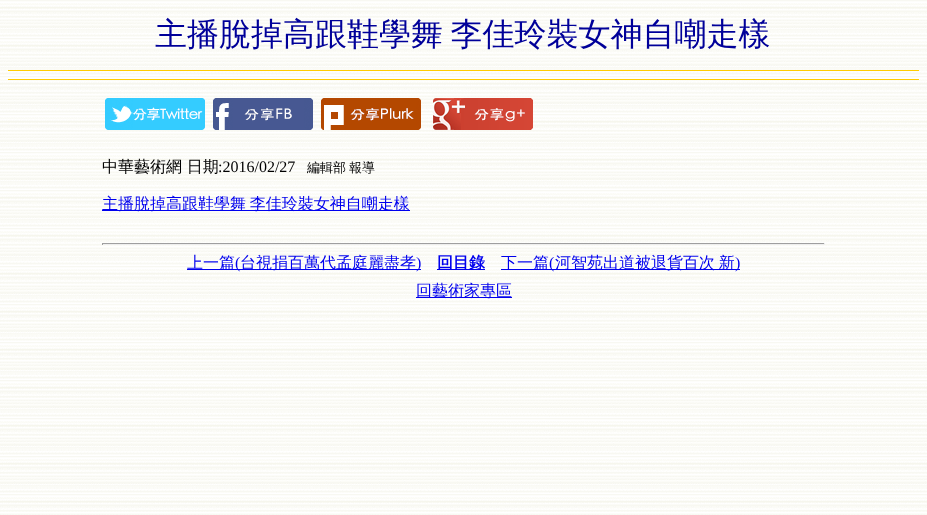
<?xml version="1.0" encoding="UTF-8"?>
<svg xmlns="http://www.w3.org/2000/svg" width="927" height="515">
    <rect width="100%" height="100%" fill="#FFFFFF"/>
    <image x="0" y="0" width="927" height="515" href="img_01.png"/>
    <text x="155" y="45" word-spacing="-2" font-family="WenQuanYi Zen Hei" font-size="32" font-weight="500" fill="#000099">主播脫掉高跟鞋學舞 李佳玲裝女神自嘲走樣</text>
    <rect x="8" y="70" width="911" height="1" fill="#FFCC00"/>
    <rect x="8" y="79" width="911" height="1" fill="#FFCC00"/>
    <image x="105" y="98" width="100" height="32" href="img_02.png"/>
    <image x="213" y="98" width="100" height="32" href="img_03.png"/>
    <image x="321" y="98" width="100" height="32" href="img_04.png"/>
    <image x="433" y="98" width="100" height="32" href="img_05.png"/>
    <text x="102" y="172" font-family="WenQuanYi Zen Hei" font-size="16" font-weight="500" fill="#000000">中華藝術網 日期</text>
    <text x="218" y="172" font-family="Liberation Serif" font-size="16" fill="#000000">:2016/02/27</text>
    <text x="307" y="172" word-spacing="-1" font-family="WenQuanYi Zen Hei" font-size="13" font-weight="500" fill="#000000">編輯部 報導</text>
    <rect x="102" y="210" width="308" height="1" fill="#0000EE"/>
    <text x="102" y="209" word-spacing="-1" font-family="WenQuanYi Zen Hei" font-size="16" font-weight="500" fill="#0000EE">主播脫掉高跟鞋學舞 李佳玲裝女神自嘲走樣</text>
    <rect x="102" y="243" width="723" height="1" fill="#9F9F9F"/>
    <rect x="824" y="243" width="1" height="2" fill="#EEEEEE"/>
    <rect x="102" y="244" width="723" height="1" fill="#EEEEEE"/>
    <rect x="102" y="243" width="1" height="2" fill="#9F9F9F"/>
    <rect x="187" y="269" width="234" height="1" fill="#0000EE"/>
    <text x="187" y="268" font-family="WenQuanYi Zen Hei" font-size="16" font-weight="500" fill="#0000EE">上一篇</text>
    <text x="235" y="268" font-family="Liberation Serif" font-size="16" fill="#0000EE">(</text>
    <text x="240" y="268" font-family="WenQuanYi Zen Hei" font-size="16" font-weight="500" fill="#0000EE">台視捐百萬代孟庭麗盡孝</text>
    <text x="416" y="268" font-family="Liberation Serif" font-size="16" fill="#0000EE">)</text>
    <rect x="437" y="269" width="48" height="1" fill="#0000EE"/>
    <text x="437" y="268" font-family="WenQuanYi Zen Hei" font-size="16" font-weight="700" fill="#0000EE">回目錄</text>
    <rect x="501" y="269" width="239" height="1" fill="#0000EE"/>
    <text x="501" y="268" font-family="WenQuanYi Zen Hei" font-size="16" font-weight="500" fill="#0000EE">下一篇</text>
    <text x="549" y="268" font-family="Liberation Serif" font-size="16" fill="#0000EE">(</text>
    <text x="555" y="268" word-spacing="-1" font-family="WenQuanYi Zen Hei" font-size="16" font-weight="500" fill="#0000EE">河智苑出道被退貨百次 新</text>
    <text x="735" y="268" font-family="Liberation Serif" font-size="16" fill="#0000EE">)</text>
    <rect x="416" y="297" width="96" height="1" fill="#0000EE"/>
    <text x="416" y="296" font-family="WenQuanYi Zen Hei" font-size="16" font-weight="500" fill="#0000EE">回藝術家專區</text>
</svg>
